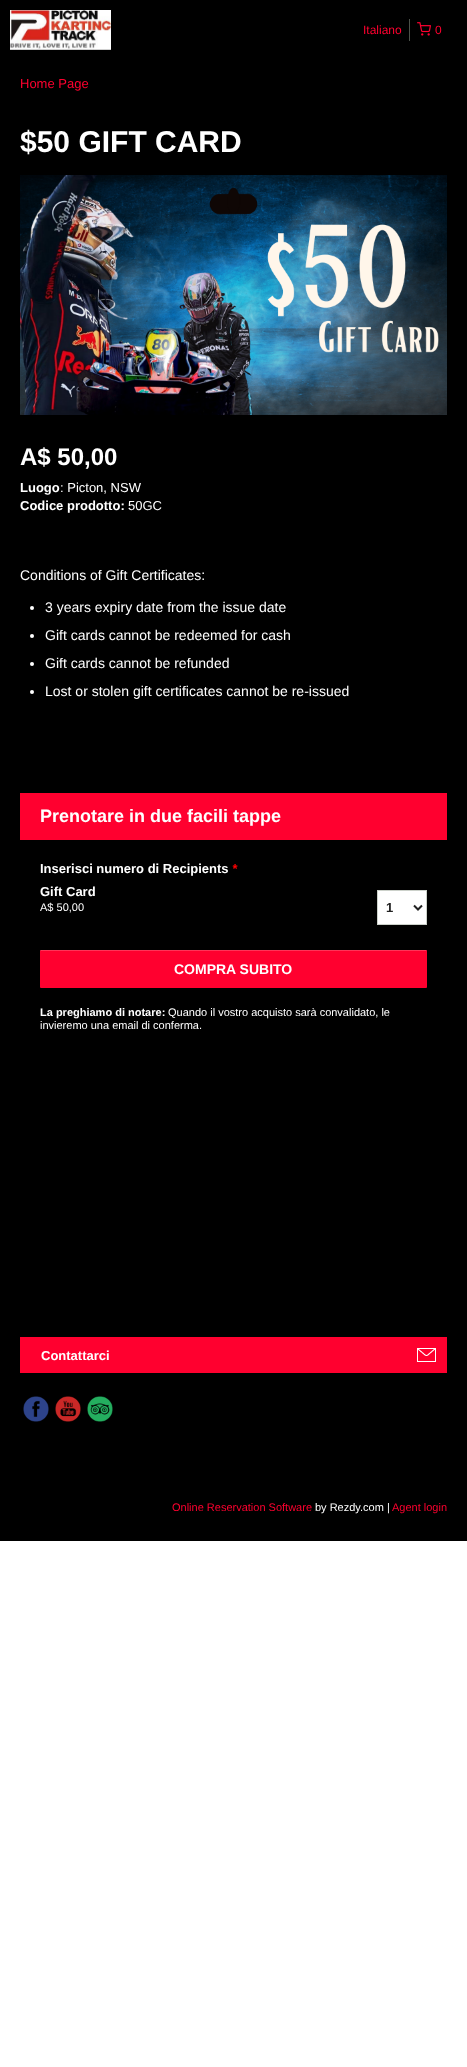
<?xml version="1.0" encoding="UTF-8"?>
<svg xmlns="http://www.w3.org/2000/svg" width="467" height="2067">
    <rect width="100%" height="100%" fill="#FFFFFF"/>
    <rect x="0" y="0" width="467" height="1541" fill="#000000"/>
    <image x="10" y="10" width="101" height="40" href="img_01.png"/>
    <rect x="409" y="19" width="1" height="22" fill="#4C524A"/>
    <text x="363" y="34" font-family="Liberation Sans" font-size="12" fill="#FF002F">Italiano</text>
    <image x="417" y="22" width="14" height="14" href="img_02.png"/>
    <text x="435" y="34" font-family="Liberation Sans" font-size="12" fill="#FF002F">0</text>
    <text x="20" y="88" font-family="Liberation Sans" font-size="13" fill="#FF002F">Home Page</text>
    <text x="20" y="152" font-family="Liberation Sans" font-size="30" font-weight="700" fill="#FFFFFF">$50 GIFT CARD</text>
    <image x="20" y="175" width="427" height="240" href="img_03.png"/>
    <text x="20" y="465" font-family="Liberation Sans" font-size="24" font-weight="700" fill="#FFFFFF">A$ 50,00</text>
    <text x="20" y="492" font-family="Liberation Sans" font-size="13" font-weight="700" fill="#FFFFFF">Luogo</text>
    <text x="60" y="492" font-family="Liberation Sans" font-size="13" fill="#FFFFFF">: Picton, NSW</text>
    <text x="20" y="510" font-family="Liberation Sans" font-size="13" font-weight="700" fill="#FFFFFF">Codice prodotto:</text>
    <text x="128" y="510" font-family="Liberation Sans" font-size="13" fill="#FFFFFF">50GC</text>
    <text x="20" y="580" font-family="Liberation Sans" font-size="14" fill="#FFFFFF">Conditions of Gift Certificates:</text>
    <circle cx="32" cy="608" r="2" fill="#FFFFFF"/>
    <text x="45" y="612" font-family="Liberation Sans" font-size="14" fill="#FFFFFF">3 years expiry date from the issue date</text>
    <circle cx="32" cy="636" r="2" fill="#FFFFFF"/>
    <text x="45" y="640" font-family="Liberation Sans" font-size="14" fill="#FFFFFF">Gift cards cannot be redeemed for cash</text>
    <circle cx="32" cy="664" r="2" fill="#FFFFFF"/>
    <text x="45" y="668" font-family="Liberation Sans" font-size="14" fill="#FFFFFF">Gift cards cannot be refunded</text>
    <circle cx="32" cy="692" r="2" fill="#FFFFFF"/>
    <text x="45" y="696" font-family="Liberation Sans" font-size="14" fill="#FFFFFF">Lost or stolen gift certificates cannot be re-issued</text>
    <rect x="20" y="793" width="427" height="47" fill="#FF002F"/>
    <text x="40" y="822" font-family="Liberation Sans" font-size="18" font-weight="700" fill="#FFFFFF">Prenotare in due facili tappe</text>
    <text x="40" y="873" font-family="Liberation Sans" font-size="13" font-weight="700" fill="#FFFFFF">Inserisci numero di Recipients</text>
    <text x="232" y="873" font-family="Liberation Sans" font-size="13" font-weight="700" font-style="italic" fill="#FF0000">*</text>
    <text x="40" y="896" font-family="Liberation Sans" font-size="13" font-weight="700" fill="#FFFFFF">Gift Card</text>
    <text x="40" y="911" font-family="Liberation Sans" font-size="11" fill="#FFFFFF">A$ 50,00</text>
    <rect x="377.5" y="890.5" width="49" height="34" fill="#FFFFFF" stroke="#CCD1CA"/>
    <path d="M 414 905.5 L 418 909.5 L 422 905.5" fill="none" stroke="#222222" stroke-width="2"/>
    <text x="386" y="912" font-family="Liberation Sans" font-size="13" font-weight="700" fill="#222222">1</text>
    <rect x="40" y="950" width="387" height="38" rx="1" fill="#FF002F"/>
    <path d="M 41 951 H 426 H 427 V 952 V 951 L 426 950 H 41 C 40 950 40 951 40 952 C 40 951 40 951 41 951 Z" fill="#FFFFFF" fill-opacity="0.2"/>
    <text x="174" y="974" font-family="Liberation Sans" font-size="14" font-weight="700" fill="#FFFFFF">COMPRA SUBITO</text>
    <text x="40" y="1016" font-family="Liberation Sans" font-size="11" font-weight="700" fill="#FFFFFF">La preghiamo di notare:</text>
    <text x="168" y="1016" font-family="Liberation Sans" font-size="11" fill="#FFFFFF">Quando il vostro acquisto sarà convalidato, le</text>
    <text x="40" y="1029" font-family="Liberation Sans" font-size="11" fill="#FFFFFF">invieremo una email di conferma.</text>
    <rect x="20" y="1337" width="427" height="36" fill="#FF002F"/>
    <image x="417" y="1348" width="19" height="14" href="img_04.png"/>
    <text x="41" y="1360" font-family="Liberation Sans" font-size="13" font-weight="700" fill="#FFFFFF">Contattarci</text>
    <image x="23" y="1396" width="26" height="26" href="img_05.png"/>
    <image x="55" y="1396" width="26" height="26" href="img_06.png"/>
    <image x="87" y="1396" width="26" height="26" href="img_07.png"/>
    <text x="172" y="1511" font-family="Liberation Sans" font-size="11" fill="#FF002F">Online Reservation Software</text>
    <text x="315" y="1511" font-family="Liberation Sans" font-size="11" fill="#FFFFFF">by Rezdy.com |</text>
    <text x="392" y="1511" font-family="Liberation Sans" font-size="11" fill="#FF002F">Agent login</text>
</svg>
